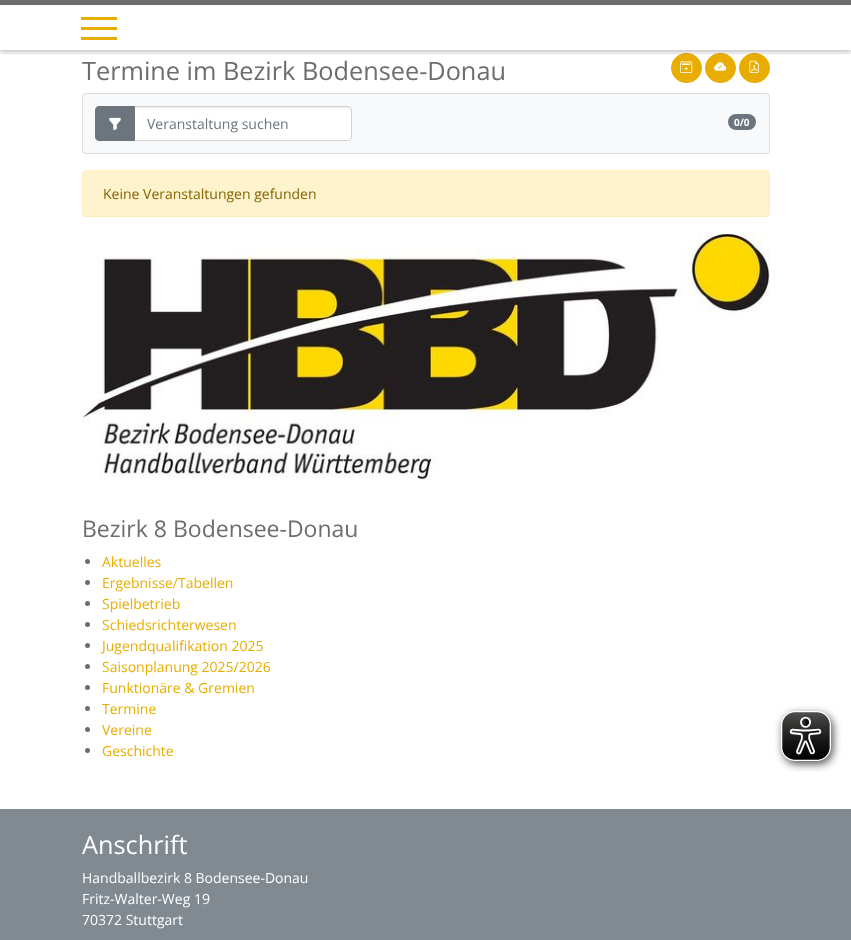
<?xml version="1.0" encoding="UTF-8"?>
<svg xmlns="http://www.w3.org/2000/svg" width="851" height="940">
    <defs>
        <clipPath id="clip1"><rect x="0" y="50" width="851" height="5"/></clipPath>
        <filter id="blur1" x="-50%" y="-200%" width="200%" height="500%"><feGaussianBlur stdDeviation="2.5"/></filter>
    </defs>
    <rect width="100%" height="100%" fill="#FFFFFF"/>
    <rect x="671.5" y="53.5" width="30" height="29" rx="14.5" fill="#E8AD00" stroke="#E8AD00"/>
    <image x="680" y="60" width="13" height="13" href="img_01.png"/>
    <rect x="705.5" y="53.5" width="30" height="29" rx="14.5" fill="#E8AD00" stroke="#E8AD00"/>
    <rect x="739.5" y="53.5" width="30" height="29" rx="14.5" fill="#E8AD00" stroke="#E8AD00"/>
    <image x="749" y="60" width="10" height="13" href="img_03.png"/>
    <g clip-path="url(#clip1)">
        <rect x="0" y="2" width="851" height="50" fill="#000000" fill-opacity="0.25" filter="url(#blur1)"/>
    </g>
    <rect x="0" y="0" width="851" height="5" fill="#6D6D6D"/>
    <rect x="81" y="17" width="36" height="3" fill="#E8AD00"/>
    <rect x="81" y="27" width="36" height="3" fill="#E8AD00"/>
    <rect x="81" y="37" width="36" height="3" fill="#E8AD00"/>
    <text x="82" y="80" font-family="Open Sans" font-size="25.3" fill="#6D6D6D">Termine im Bezirk Bodensee-Donau</text>
    <image x="714" y="62" width="13" height="9" href="img_02.png"/>
    <rect x="82.5" y="93.5" width="687" height="60" rx="3.5" fill="#F8F9FA" stroke="#D9DADB"/>
    <path d="M 135 107 H 348 C 349.5 107 351 108.5 351 110 V 137 C 351 138.5 349.5 140 348 140 H 135 Z" fill="#FFFFFF"/>
    <path d="M 135 108 H 348 C 350 108 351 109 351 111 V 110 C 351 108 350 107 348 107 H 135 Z" fill="#000000" fill-opacity="0.07"/>
    <path d="M 134.5 106.5 H 348 C 350 106.5 351.5 108 351.5 110 V 137 C 351.5 139 350 140.5 348 140.5 H 134.5 Z" fill="none" stroke="#CED4DA"/>
    <path d="M 99 106.5 H 134.5 V 140.5 H 99 C 97 140.5 95.5 139 95.5 137 V 110 C 95.5 108 97 106.5 99 106.5 Z" fill="#6C757D" stroke="#6C757D"/>
    <image x="109" y="117" width="12" height="14" href="img_04.png"/>
    <text x="147" y="129" font-family="Open Sans" font-size="14" fill="#6C757D">Veranstaltung suchen</text>
    <rect x="728" y="114" width="28" height="16" rx="8" fill="#6C757D"/>
    <text x="734" y="126" font-family="Open Sans" font-size="10" font-weight="700" fill="#FFFFFF">0/0</text>
    <rect x="82.5" y="170.5" width="687" height="46" rx="3.5" fill="#FFF3CD" stroke="#FFEEBA"/>
    <text x="103" y="199" font-family="Open Sans" font-size="14" fill="#856404">Keine Veranstaltungen gefunden</text>
    <image x="82" y="233" width="688" height="247" href="img_05.png"/>
    <text x="82" y="537" font-family="Open Sans" font-size="23" fill="#6D6D6D">Bezirk 8 Bodensee-Donau</text>
    <circle cx="87.5" cy="561.5" r="2.5" fill="#6D6D6D"/>
    <text x="102" y="567" font-family="Open Sans" font-size="14" fill="#E8AD00">Aktuelles</text>
    <circle cx="87.5" cy="582.5" r="2.5" fill="#6D6D6D"/>
    <text x="102" y="588" font-family="Open Sans" font-size="14" fill="#E8AD00">Ergebnisse/Tabellen</text>
    <circle cx="87.5" cy="603.5" r="2.5" fill="#6D6D6D"/>
    <text x="102" y="609" font-family="Open Sans" font-size="14" fill="#E8AD00">Spielbetrieb</text>
    <circle cx="87.5" cy="624.5" r="2.5" fill="#6D6D6D"/>
    <text x="102" y="630" font-family="Open Sans" font-size="14" fill="#E8AD00">Schiedsrichterwesen</text>
    <circle cx="87.5" cy="645.5" r="2.5" fill="#6D6D6D"/>
    <text x="102" y="651" font-family="Open Sans" font-size="14" fill="#E8AD00">Jugendqualifikation 2025</text>
    <circle cx="87.5" cy="666.5" r="2.5" fill="#6D6D6D"/>
    <text x="102" y="672" font-family="Open Sans" font-size="14" fill="#E8AD00">Saisonplanung 2025/2026</text>
    <circle cx="87.5" cy="687.5" r="2.5" fill="#6D6D6D"/>
    <text x="102" y="693" font-family="Open Sans" font-size="14" fill="#E8AD00">Funktionäre &amp; Gremien</text>
    <circle cx="87.5" cy="708.5" r="2.5" fill="#6D6D6D"/>
    <text x="102" y="714" font-family="Open Sans" font-size="14" fill="#E8AD00">Termine</text>
    <circle cx="87.5" cy="729.5" r="2.5" fill="#6D6D6D"/>
    <text x="102" y="735" font-family="Open Sans" font-size="14" fill="#E8AD00">Vereine</text>
    <circle cx="87.5" cy="750.5" r="2.5" fill="#6D6D6D"/>
    <text x="102" y="756" font-family="Open Sans" font-size="14" fill="#E8AD00">Geschichte</text>
    <image x="775" y="706" width="66" height="66" href="img_06.png"/>
    <rect x="0" y="809" width="851" height="131" fill="#818A91"/>
    <text x="82" y="854" font-family="Open Sans" font-size="25.3" fill="#FFFFFF">Anschrift</text>
    <text font-family="Open Sans" font-size="14" fill="#FFFFFF">
        <tspan x="82" y="883">Handballbezirk 8 Bodensee-Donau</tspan>
        <tspan x="82" y="904">Fritz-Walter-Weg 19</tspan>
        <tspan x="82" y="925">70372 Stuttgart</tspan>
    </text>
</svg>
